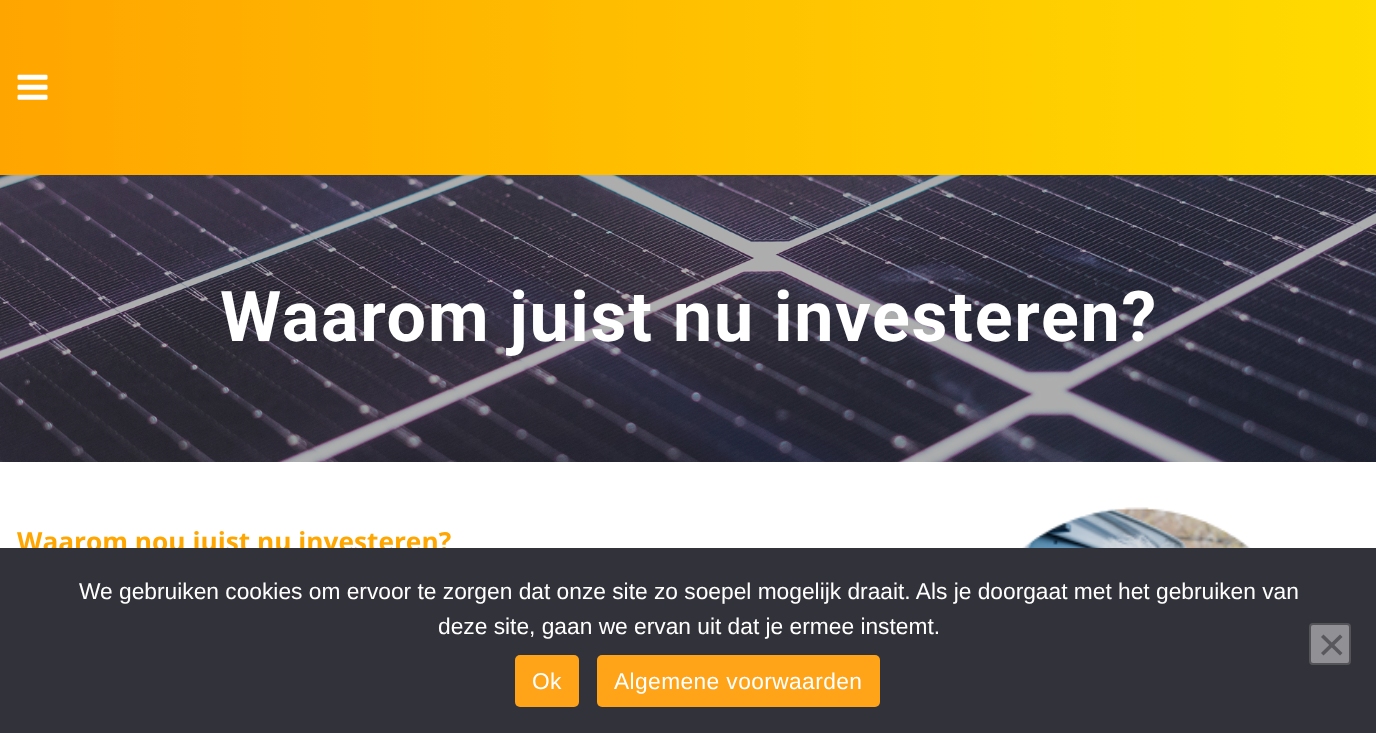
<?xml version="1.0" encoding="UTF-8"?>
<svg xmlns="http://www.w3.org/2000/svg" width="1376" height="733">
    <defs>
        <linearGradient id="g1" gradientUnits="userSpaceOnUse" x1="0" y1="88" x2="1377" y2="87"><stop offset="0" stop-color="#FFA500"/><stop offset="1" stop-color="#FFDB00"/></linearGradient>
    </defs>
    <rect width="100%" height="100%" fill="#FFFFFF"/>
    <rect x="0" y="0" width="1376" height="175" fill="url(#g1)"/>
    <image x="17" y="74" width="31" height="26" href="img_01.png"/>
    <image x="0" y="175" width="1376" height="287" href="img_02.png"/>
    <text x="220" y="341" font-family="Roboto" font-size="70" font-weight="700" letter-spacing="1.75" fill="#FFFFFF">Waarom juist nu investeren?</text>
    <text x="17" y="551" font-family="Open Sans" font-size="26.25" font-weight="700" fill="#FFA600">Waarom nou juist nu investeren?</text>
    <image x="1020" y="507" width="232" height="41" href="img_03.png"/>
    <rect x="0" y="548" width="1376" height="185" fill="#32323A"/>
    <text x="79" y="599" font-family="Liberation Sans" font-size="22.75" fill="#FFFFFF">We gebruiken cookies om ervoor te zorgen dat onze site zo soepel mogelijk draait. Als je doorgaat met het gebruiken van</text>
    <text x="438" y="634" font-family="Liberation Sans" font-size="22.75" fill="#FFFFFF">deze site, gaan we ervan uit dat je ermee instemt.</text>
    <rect x="1310" y="624" width="40" height="40" rx="3" fill="#919195" stroke="#545458" stroke-width="2"/>
    <path d="M 1340 634.5 L 1342.5 637 L 1323.5 655.5 L 1321 653 Z" fill="#59595D"/>
    <path d="M 1321 637 L 1323.5 634.5 L 1342.5 653 L 1340 655.5 Z" fill="#59595D"/>
    <rect x="515" y="655" width="64" height="52" rx="5" fill="#FFA319"/>
    <text x="532" y="689" font-family="Liberation Sans" font-size="22.75" letter-spacing="0.4" fill="#FFFFFF">Ok</text>
    <rect x="597" y="655" width="283" height="52" rx="5" fill="#FFA319"/>
    <text x="614" y="689" font-family="Liberation Sans" font-size="22.75" letter-spacing="0.4" fill="#FFFFFF">Algemene voorwaarden</text>
</svg>
